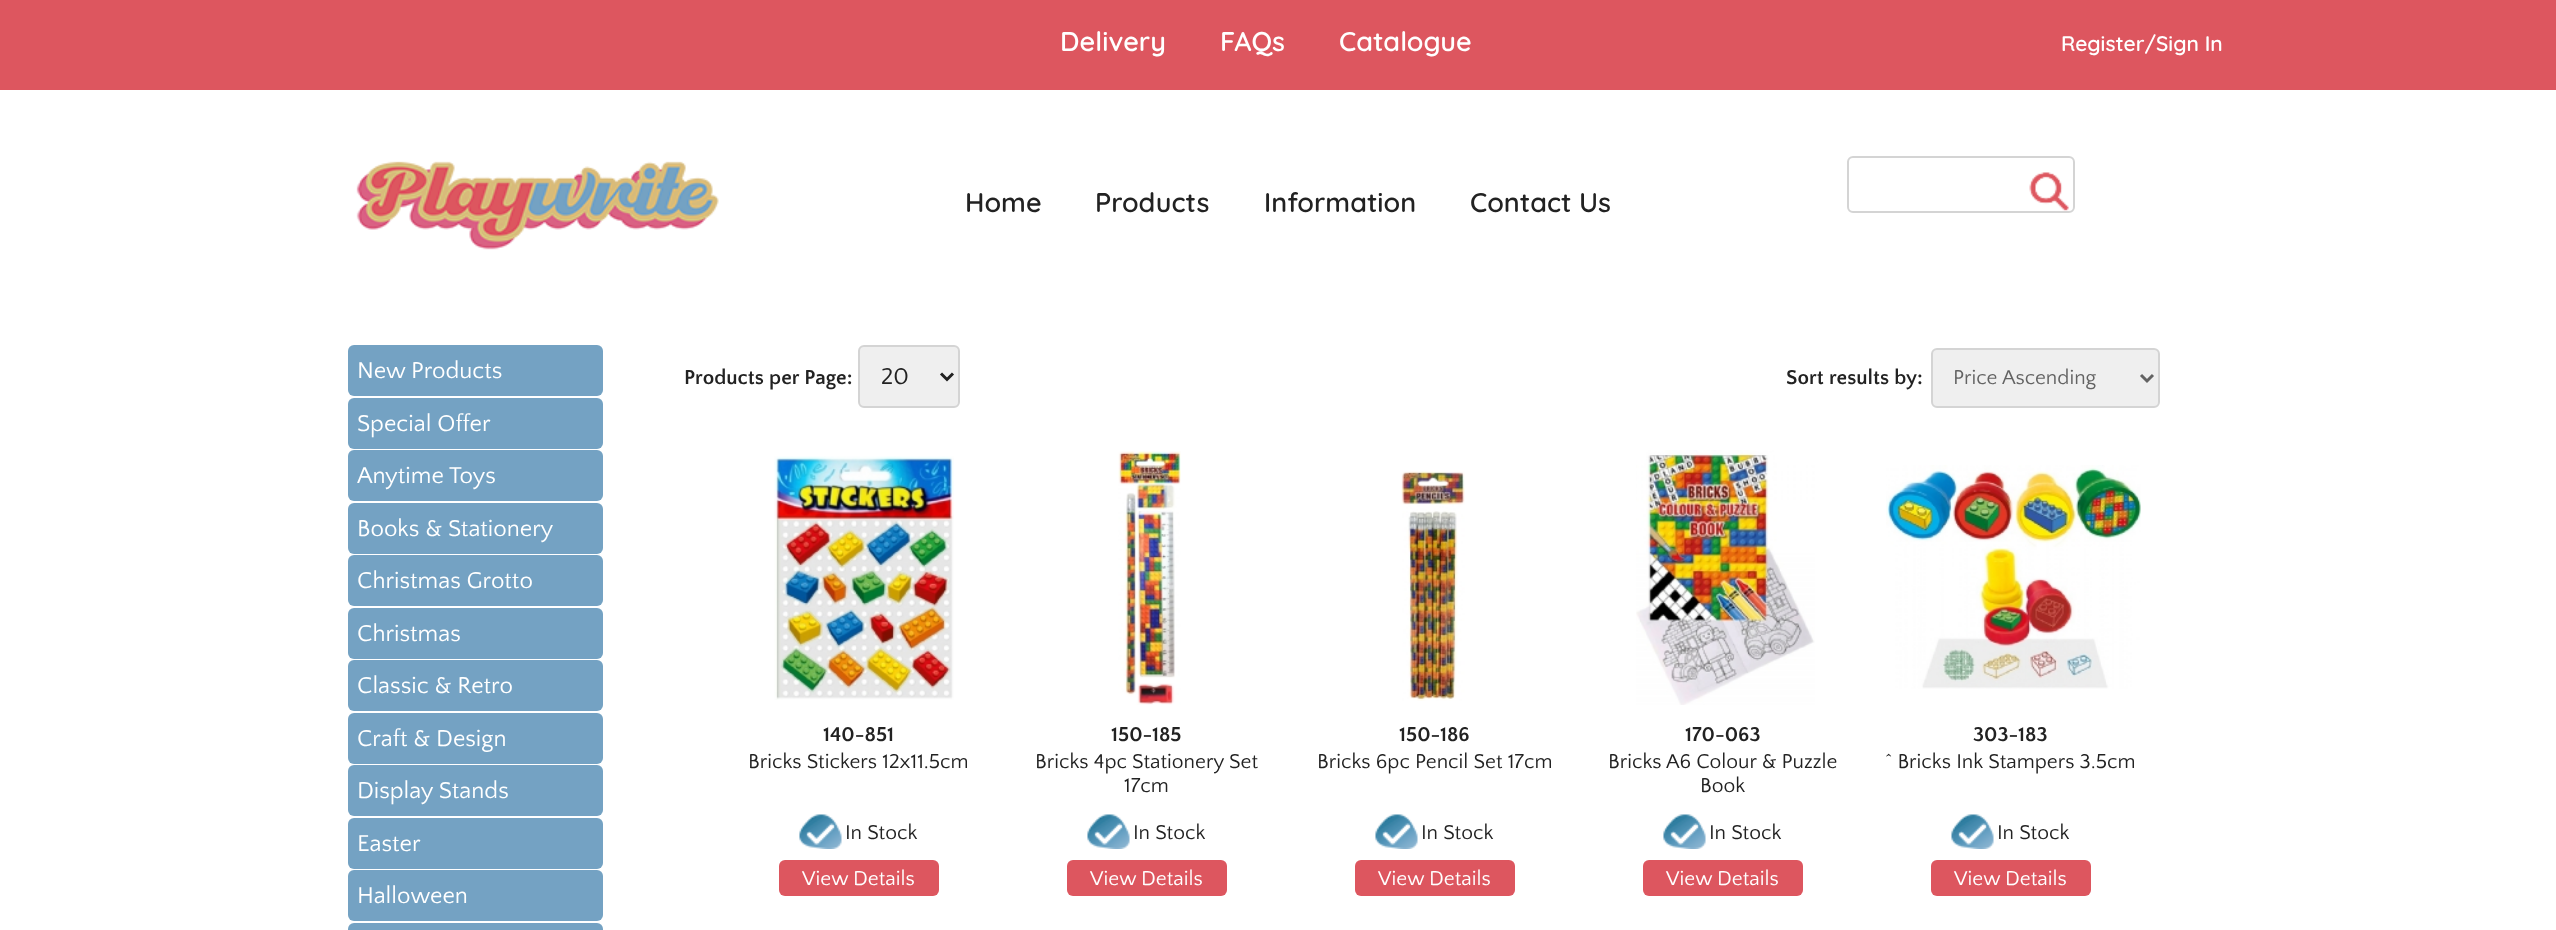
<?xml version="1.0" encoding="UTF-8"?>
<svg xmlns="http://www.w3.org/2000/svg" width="2556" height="930">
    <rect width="100%" height="100%" fill="#FFFFFF"/>
    <rect x="0" y="0" width="2556" height="90" fill="#DD565F"/>
    <text x="1060" y="51" font-family="Quicksand" font-size="27" font-weight="600" fill="#FFFFFF">Delivery</text>
    <text x="1220" y="51" font-family="Quicksand" font-size="27" font-weight="600" fill="#FFFFFF">FAQs</text>
    <text x="1339" y="51" font-family="Quicksand" font-size="27" font-weight="600" fill="#FFFFFF">Catalogue</text>
    <text x="2061" y="51" font-family="Quicksand" font-size="21" font-weight="600" fill="#FFFFFF">Register/Sign In</text>
    <image x="356" y="161" width="363" height="89" href="img_01.png"/>
    <text x="965" y="212" font-family="Quicksand" font-size="27" font-weight="600" fill="#222222">Home</text>
    <text x="1095" y="212" font-family="Quicksand" font-size="27" font-weight="600" fill="#222222">Products</text>
    <text x="1264" y="212" font-family="Quicksand" font-size="27" font-weight="600" fill="#222222">Information</text>
    <text x="1470" y="212" font-family="Quicksand" font-size="27" font-weight="600" fill="#222222">Contact Us</text>
    <rect x="1848" y="157" width="226" height="55" rx="5" fill="none" stroke="#D4D4D4" stroke-width="2"/>
    <image x="2029" y="172" width="40" height="39" href="img_02.png"/>
    <rect x="348" y="345" width="255" height="51" rx="6" fill="#74A2C3"/>
    <text x="357" y="378" font-family="Quattrocento Sans" font-size="24" fill="#FFFFFF">New Products</text>
    <rect x="348" y="398" width="255" height="51" rx="6" fill="#74A2C3"/>
    <text x="357" y="431" font-family="Quattrocento Sans" font-size="24" fill="#FFFFFF">Special Offer</text>
    <rect x="348" y="450" width="255" height="51" rx="6" fill="#74A2C3"/>
    <text x="357" y="483" font-family="Quattrocento Sans" font-size="24" fill="#FFFFFF">Anytime Toys</text>
    <rect x="348" y="503" width="255" height="51" rx="6" fill="#74A2C3"/>
    <text x="357" y="536" font-family="Quattrocento Sans" font-size="24" fill="#FFFFFF">Books &amp; Stationery</text>
    <rect x="348" y="555" width="255" height="51" rx="6" fill="#74A2C3"/>
    <text x="357" y="588" font-family="Quattrocento Sans" font-size="24" fill="#FFFFFF">Christmas Grotto</text>
    <rect x="348" y="608" width="255" height="51" rx="6" fill="#74A2C3"/>
    <text x="357" y="641" font-family="Quattrocento Sans" font-size="24" fill="#FFFFFF">Christmas</text>
    <rect x="348" y="660" width="255" height="51" rx="6" fill="#74A2C3"/>
    <text x="357" y="693" font-family="Quattrocento Sans" font-size="24" fill="#FFFFFF">Classic &amp; Retro</text>
    <rect x="348" y="713" width="255" height="51" rx="6" fill="#74A2C3"/>
    <text x="357" y="746" font-family="Quattrocento Sans" font-size="24" fill="#FFFFFF">Craft &amp; Design</text>
    <rect x="348" y="765" width="255" height="51" rx="6" fill="#74A2C3"/>
    <text x="357" y="798" font-family="Quattrocento Sans" font-size="24" fill="#FFFFFF">Display Stands</text>
    <rect x="348" y="818" width="255" height="51" rx="6" fill="#74A2C3"/>
    <text x="357" y="851" font-family="Quattrocento Sans" font-size="24" fill="#FFFFFF">Easter</text>
    <rect x="348" y="870" width="255" height="51" rx="6" fill="#74A2C3"/>
    <text x="357" y="903" font-family="Quattrocento Sans" font-size="24" fill="#FFFFFF">Halloween</text>
    <rect x="348" y="923" width="255" height="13" rx="6" fill="#74A2C3"/>
    <text x="684" y="384" font-family="Quattrocento Sans" font-size="21" font-weight="700" fill="#222222">Products per Page:</text>
    <rect x="859" y="346" width="100" height="61" rx="5" fill="#EFEFEF" stroke="#D4D4D4" stroke-width="2"/>
    <path d="M 941 373.5 L 947 379.5 L 953 373.5" fill="none" stroke="#222222" stroke-width="3"/>
    <text x="881" y="384" font-family="Quattrocento Sans" font-size="24" fill="#222222">20</text>
    <text x="1786" y="384" font-family="Quattrocento Sans" font-size="21" font-weight="700" fill="#222222">Sort results by:</text>
    <rect x="1932" y="349" width="227" height="58" rx="5" fill="#EFEFEF" stroke="#D4D4D4" stroke-width="2"/>
    <path d="M 2141 375 L 2147 381 L 2153 375" fill="none" stroke="#636363" stroke-width="3"/>
    <text x="1953" y="384" font-family="Quattrocento Sans" font-size="21" fill="#636363">Price Ascending</text>
    <image x="774" y="456" width="180" height="244" href="img_03.png"/>
    <text x="823" y="741" font-family="Quattrocento Sans" font-size="21" font-weight="700" fill="#222222">140-851</text>
    <text x="748" y="768" font-family="Quattrocento Sans" font-size="21" fill="#222222">Bricks Stickers 12x11.5cm</text>
    <image x="799" y="814" width="43" height="35" href="img_04.png"/>
    <text x="845" y="839" font-family="Quattrocento Sans" font-size="21" fill="#222222">In Stock</text>
    <rect x="779" y="860" width="160" height="36" rx="6" fill="#DD565F"/>
    <text x="802" y="885" font-family="Quattrocento Sans" font-size="21" fill="#FFFFFF">View Details</text>
    <image x="1118" y="451" width="63" height="254" href="img_05.png"/>
    <text x="1111" y="741" font-family="Quattrocento Sans" font-size="21" font-weight="700" fill="#222222">150-185</text>
    <text x="1035" y="768" font-family="Quattrocento Sans" font-size="21" fill="#222222">Bricks 4pc Stationery Set</text>
    <text x="1124" y="792" font-family="Quattrocento Sans" font-size="21" fill="#222222">17cm</text>
    <image x="1087" y="814" width="43" height="35" href="img_04.png"/>
    <text x="1133" y="839" font-family="Quattrocento Sans" font-size="21" fill="#222222">In Stock</text>
    <rect x="1067" y="860" width="160" height="36" rx="6" fill="#DD565F"/>
    <text x="1090" y="885" font-family="Quattrocento Sans" font-size="21" fill="#FFFFFF">View Details</text>
    <image x="1401" y="471" width="64" height="230" href="img_06.png"/>
    <text x="1399" y="741" font-family="Quattrocento Sans" font-size="21" font-weight="700" fill="#222222">150-186</text>
    <text x="1317" y="768" font-family="Quattrocento Sans" font-size="21" fill="#222222">Bricks 6pc Pencil Set 17cm</text>
    <image x="1375" y="814" width="43" height="35" href="img_07.png"/>
    <text x="1421" y="839" font-family="Quattrocento Sans" font-size="21" fill="#222222">In Stock</text>
    <rect x="1355" y="860" width="160" height="36" rx="6" fill="#DD565F"/>
    <text x="1378" y="885" font-family="Quattrocento Sans" font-size="21" fill="#FFFFFF">View Details</text>
    <image x="1636" y="450" width="179" height="255" href="img_08.png"/>
    <text x="1685" y="741" font-family="Quattrocento Sans" font-size="21" font-weight="700" fill="#222222">170-063</text>
    <text x="1608" y="768" font-family="Quattrocento Sans" font-size="21" fill="#222222">Bricks A6 Colour &amp; Puzzle</text>
    <text x="1700" y="792" font-family="Quattrocento Sans" font-size="21" fill="#222222">Book</text>
    <image x="1663" y="814" width="43" height="35" href="img_04.png"/>
    <text x="1709" y="839" font-family="Quattrocento Sans" font-size="21" fill="#222222">In Stock</text>
    <rect x="1643" y="860" width="160" height="36" rx="6" fill="#DD565F"/>
    <text x="1666" y="885" font-family="Quattrocento Sans" font-size="21" fill="#FFFFFF">View Details</text>
    <image x="1886" y="465" width="255" height="224" href="img_09.png"/>
    <text x="1973" y="741" font-family="Quattrocento Sans" font-size="21" font-weight="700" fill="#222222">303-183</text>
    <text x="1885" y="768" font-family="Quattrocento Sans" font-size="21" fill="#222222">^ Bricks Ink Stampers 3.5cm</text>
    <image x="1951" y="814" width="43" height="35" href="img_07.png"/>
    <text x="1997" y="839" font-family="Quattrocento Sans" font-size="21" fill="#222222">In Stock</text>
    <rect x="1931" y="860" width="160" height="36" rx="6" fill="#DD565F"/>
    <text x="1954" y="885" font-family="Quattrocento Sans" font-size="21" fill="#FFFFFF">View Details</text>
</svg>
